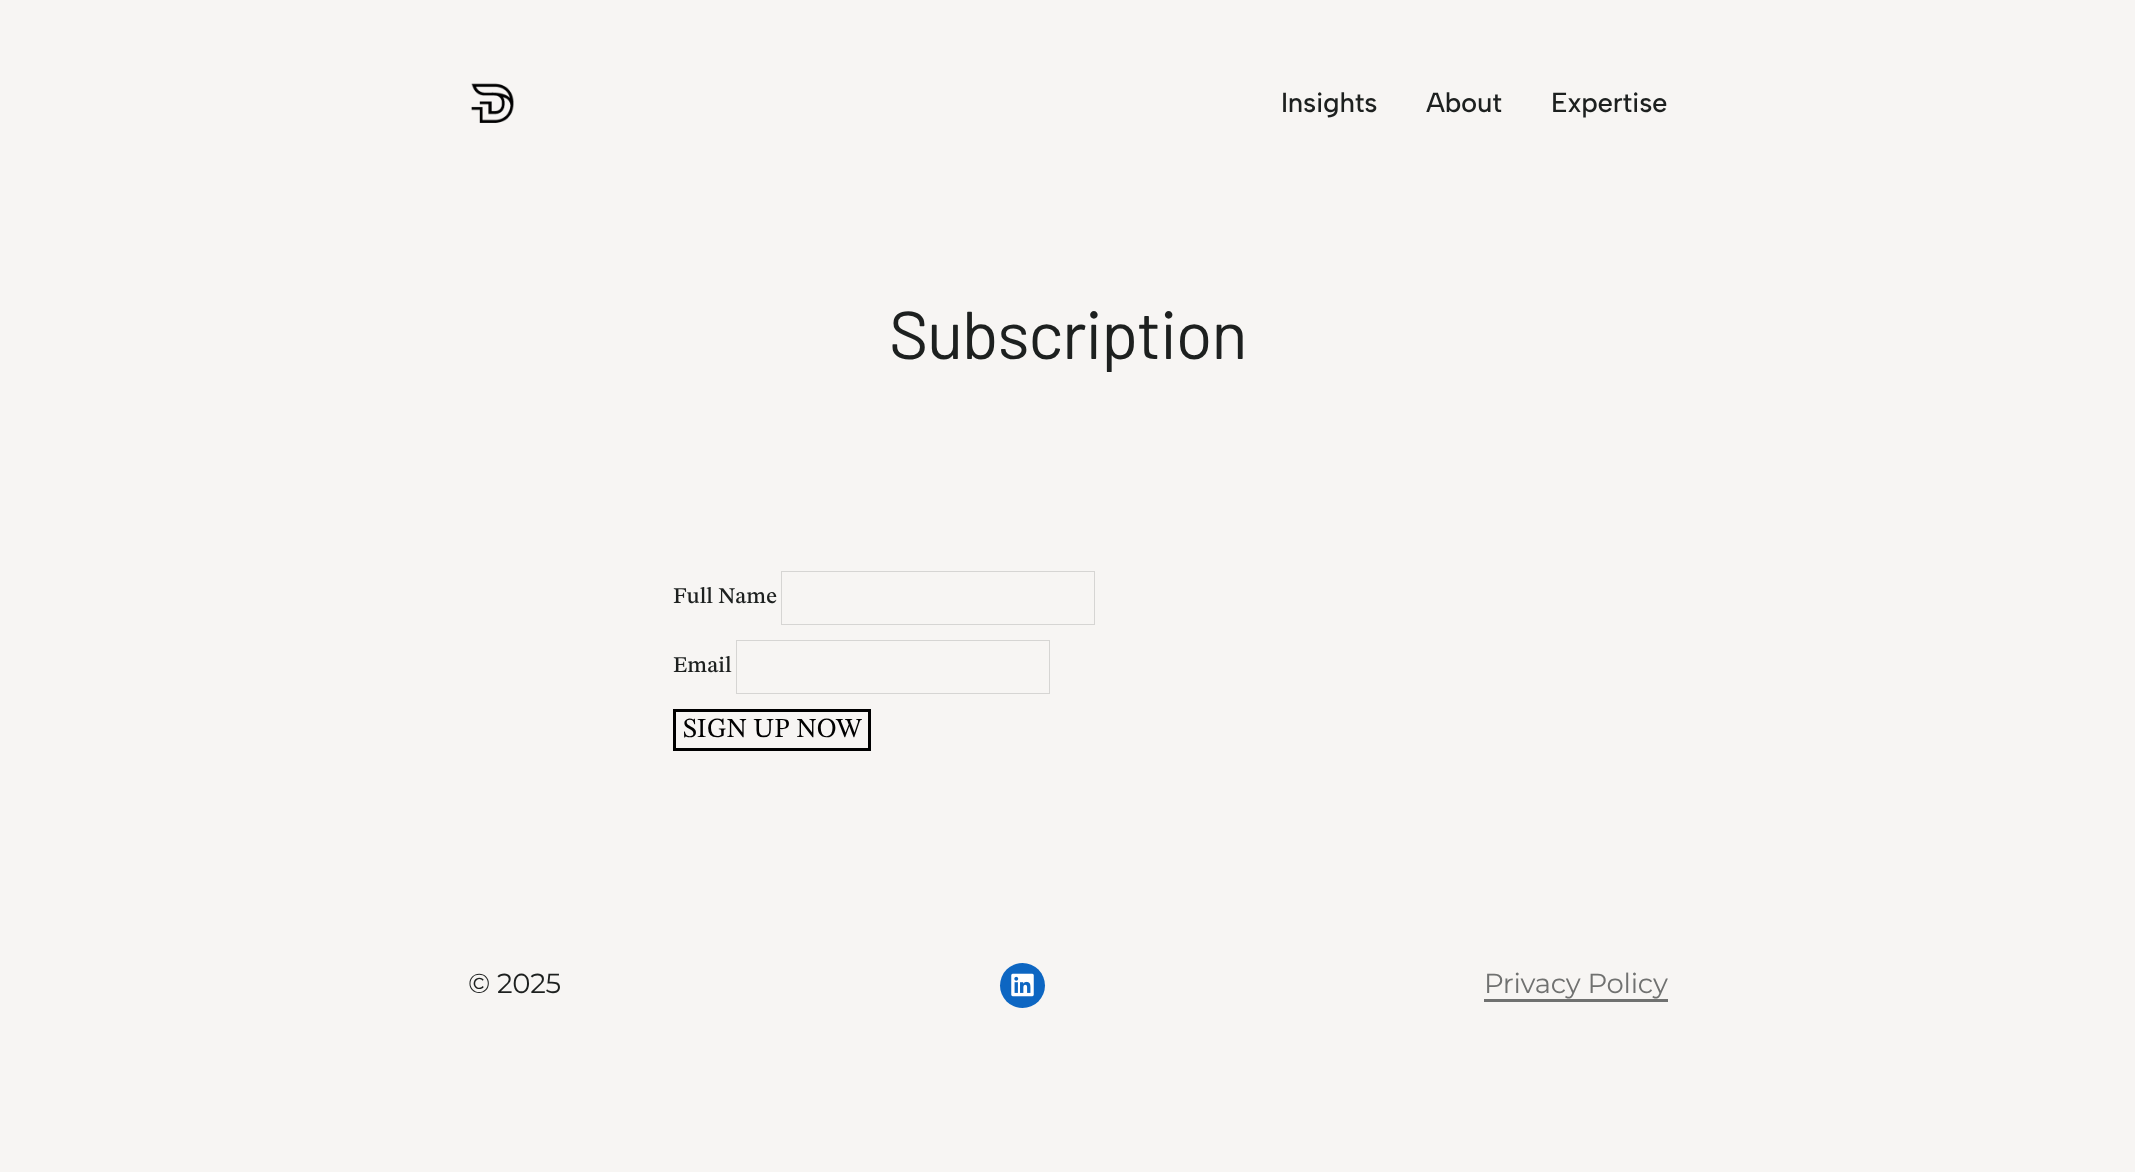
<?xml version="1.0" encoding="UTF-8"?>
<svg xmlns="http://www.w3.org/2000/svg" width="2135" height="1172">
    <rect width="100%" height="100%" fill="#F7F5F3"/>
    <image x="471" y="83" width="43" height="40" href="img_01.png"/>
    <text x="1281" y="112" font-family="Albert Sans" font-size="27.5" font-weight="500" letter-spacing="-0.25" fill="#1D201F">Insights</text>
    <text x="1426" y="112" font-family="Albert Sans" font-size="27.5" font-weight="500" letter-spacing="-0.25" fill="#1D201F">About</text>
    <text x="1551" y="112" font-family="Albert Sans" font-size="27.5" font-weight="500" letter-spacing="-0.25" fill="#1D201F">Expertise</text>
    <text x="889" y="359" font-family="Barlow" font-size="67.5" letter-spacing="-1.4" fill="#1D201F">Subscription</text>
    <text x="673" y="603" font-family="STIX Two Text" font-size="22.5" font-weight="500" fill="#1D201F">Full Name</text>
    <rect x="781.5" y="571.5" width="313" height="53" fill="none" stroke="#D6D5D3"/>
    <text x="673" y="672" font-family="STIX Two Text" font-size="22.5" font-weight="500" fill="#1D201F">Email</text>
    <rect x="736.5" y="640.5" width="313" height="53" fill="none" stroke="#D6D5D3"/>
    <rect x="674.5" y="710.5" width="195" height="39" fill="none" stroke="#000000" stroke-width="3"/>
    <text x="683" y="737" font-family="STIX Two Text" font-size="27.5" fill="#000000">SIGN UP NOW</text>
    <text x="468" y="993" font-family="Montserrat" font-size="27.5" font-weight="100" letter-spacing="-0.25" fill="#1D201F">© 2025</text>
    <circle cx="1022.5" cy="985.5" r="22.5" fill="#0D66C2"/>
    <image x="1011" y="973" width="23" height="24" href="img_02.png"/>
    <text x="1484" y="993" font-family="Montserrat" font-size="27.5" font-weight="100" letter-spacing="-0.25" fill="#707170">Privacy Policy</text>
    <rect x="1484" y="999" width="184" height="3" fill="#707170"/>
</svg>
